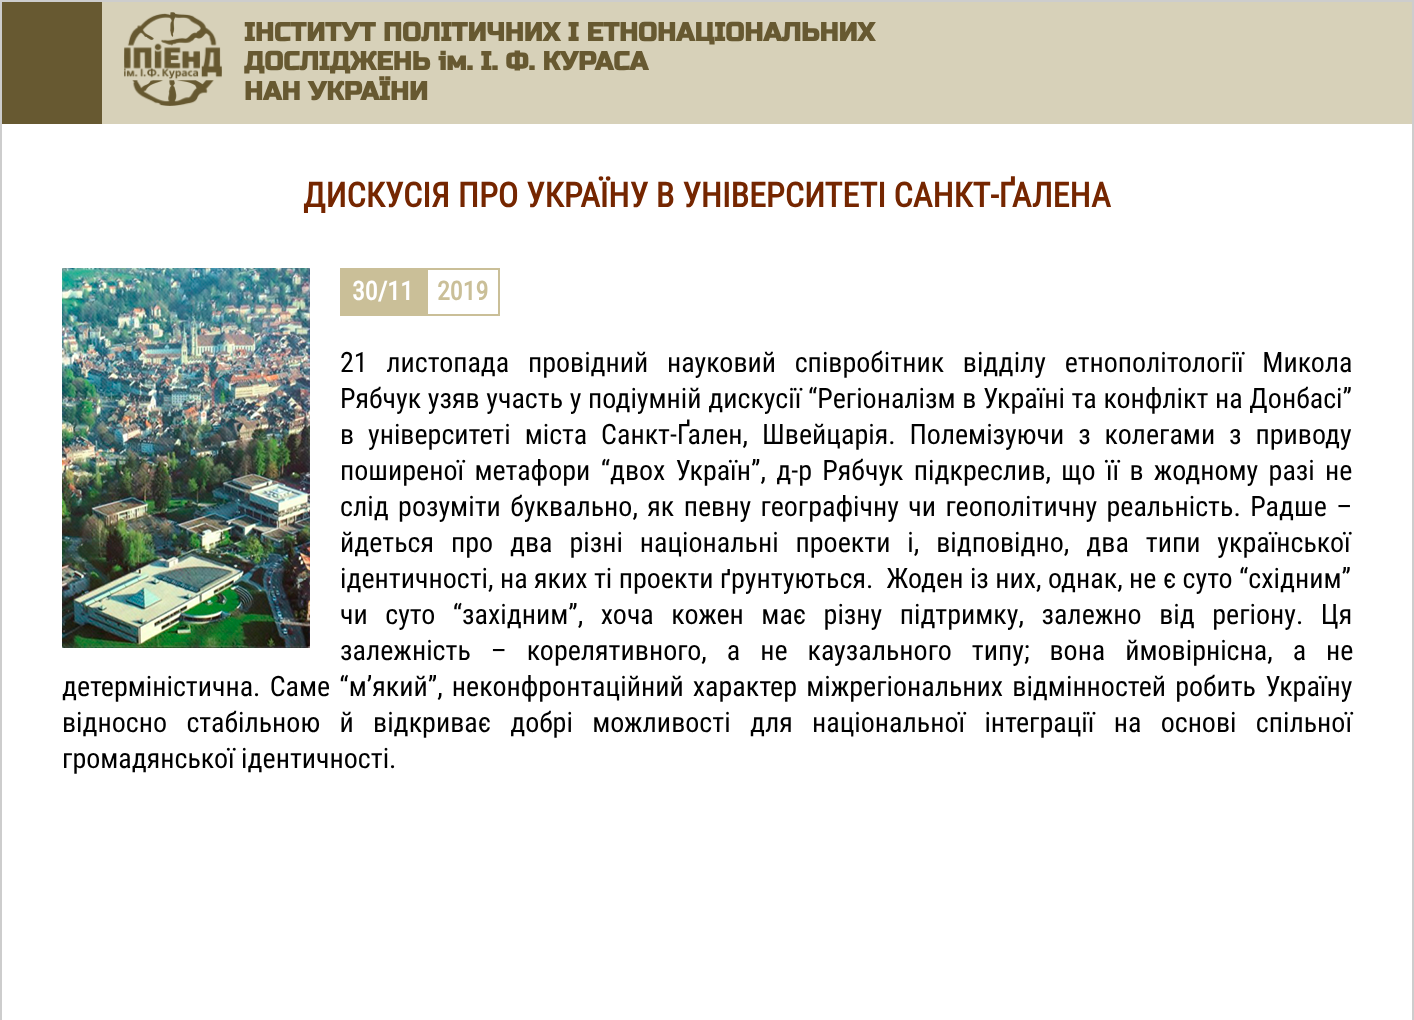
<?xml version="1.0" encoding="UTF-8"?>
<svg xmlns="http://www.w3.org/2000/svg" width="1414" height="1020">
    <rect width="100%" height="100%" fill="#FFFFFF"/>
    <rect x="1" y="1" width="1412" height="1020" fill="none" stroke="#CDCDCD" stroke-width="2"/>
    <rect x="102" y="2" width="1310" height="122" fill="#D7D1B9"/>
    <rect x="2" y="2" width="100" height="122" fill="#675931"/>
    <image x="124" y="12" width="98" height="94" href="img_01.png"/>
    <text font-family="Russo One" font-size="26" font-weight="700" fill="#675931">
        <tspan x="244" y="41">ІНСТИТУТ ПОЛІТИЧНИХ І ЕТНОНАЦІОНАЛЬНИХ</tspan>
        <tspan x="244" y="70">ДОСЛІДЖЕНЬ ім. І. Ф. КУРАСА</tspan>
        <tspan x="244" y="100">НАН УКРАЇНИ</tspan>
    </text>
    <text x="303" y="207" font-family="Roboto Condensed" font-size="34" font-weight="700" fill="#752600">ДИСКУСІЯ ПРО УКРАЇНУ В УНІВЕРСИТЕТІ САНКТ-ҐАЛЕНА</text>
    <image x="62" y="268" width="248" height="380" href="img_02.png"/>
    <rect x="340" y="268" width="86" height="48" fill="#CABF98"/>
    <text x="352" y="300" font-family="Roboto Condensed" font-size="26" font-weight="700" fill="#FFFFFF">30/11</text>
    <rect x="427" y="269" width="72" height="46" fill="none" stroke="#CABF98" stroke-width="2"/>
    <text x="437" y="300" font-family="Roboto Condensed" font-size="26" font-weight="700" fill="#CABF98">2019</text>
    <text font-family="Roboto Condensed" font-size="28" fill="#000000" xml:space="preserve"><tspan x="340" y="372" word-spacing="12.25">21 листопада провідний науковий співробітник відділу етнополітології Микола</tspan><tspan x="340" y="408" word-spacing="0.25">Рябчук узяв участь у подіумній дискусії “Регіоналізм в Україні та конфлікт на Донбасі”</tspan><tspan x="340" y="444" word-spacing="7.5">в університеті міста Санкт-Ґален, Швейцарія. Полемізуючи з колегами з приводу</tspan><tspan x="340" y="480" word-spacing="3.9">поширеної метафори “двох Україн”, д-р Рябчук підкреслив, що її в жодному разі не</tspan><tspan x="340" y="516" word-spacing="3">слід розуміти буквально, як певну географічну чи геополітичну реальність. Радше –</tspan><tspan x="340" y="552" word-spacing="10.5">йдеться про два різні національні проекти і, відповідно, два типи української</tspan><tspan x="340" y="588">ідентичності, на яких ті проекти ґрунтуються.  Жоден із них, однак, не є суто “східним”</tspan><tspan x="340" y="624" word-spacing="11.1">чи суто “західним”, хоча кожен має різну підтримку, залежно від регіону. Ця</tspan><tspan x="340" y="660" word-spacing="13.5">залежність – корелятивного, а не каузального типу; вона ймовірнісна, а не</tspan></text>
    <text font-family="Roboto Condensed" font-size="28" fill="#000000">
        <tspan x="62" y="696" word-spacing="2.75">детерміністична. Саме “м’який”, неконфронтаційний характер міжрегіональних відмінностей робить Україну</tspan>
        <tspan x="62" y="732" word-spacing="12.9">відносно стабільною й відкриває добрі можливості для національної інтеграції на основі спільної</tspan>
        <tspan x="62" y="768">громадянської ідентичності.</tspan>
    </text>
</svg>
